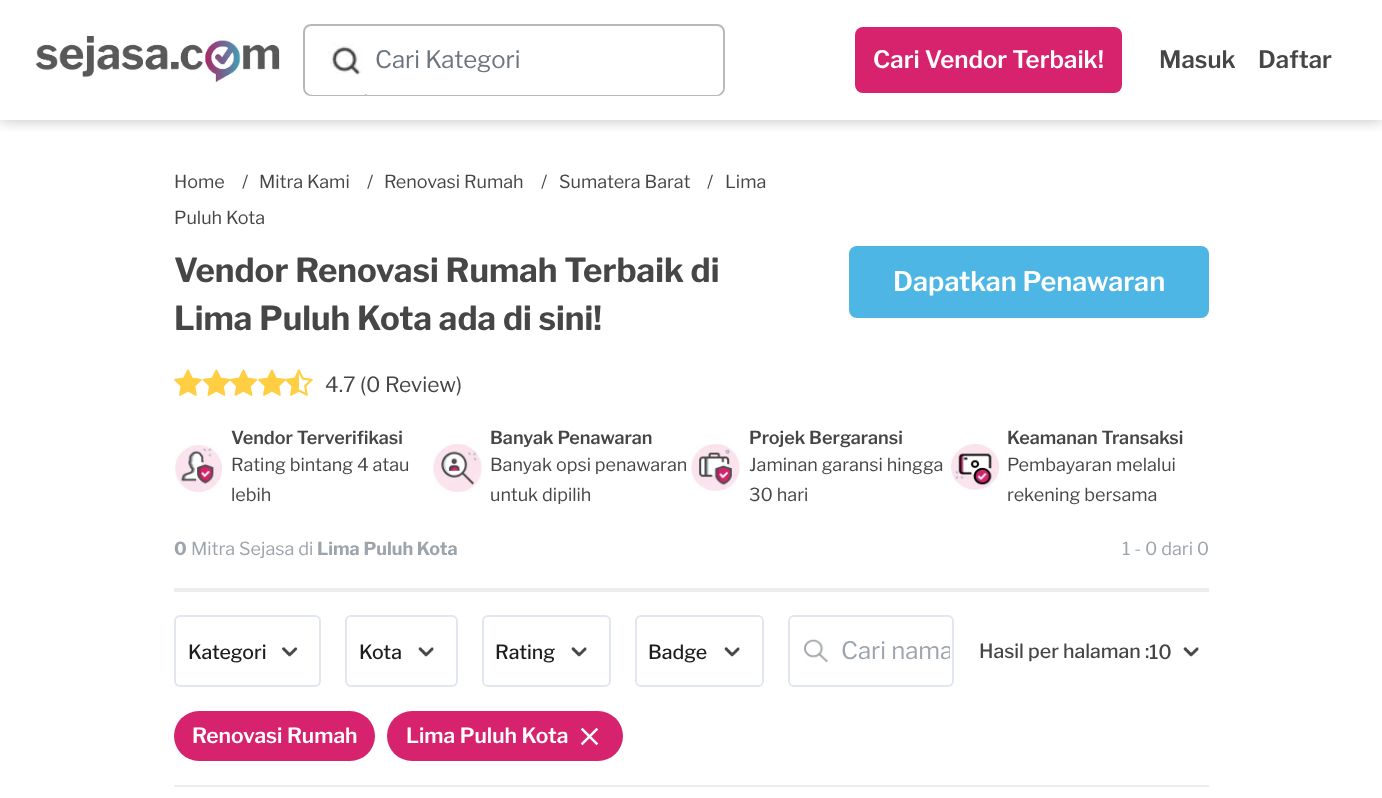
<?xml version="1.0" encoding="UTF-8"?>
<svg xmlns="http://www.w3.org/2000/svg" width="1382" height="798">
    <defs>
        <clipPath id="clip1"><rect x="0" y="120" width="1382" height="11"/></clipPath>
        <filter id="blur1" x="-50%" y="-200%" width="200%" height="500%"><feGaussianBlur stdDeviation="7.5"/></filter>
        <clipPath id="clip2"><rect x="842" y="638" width="108" height="28"/></clipPath>
    </defs>
    <rect width="100%" height="100%" fill="#FFFFFF"/>
    <g clip-path="url(#clip1)">
        <rect x="0" y="0" width="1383" height="120" fill="#000000" fill-opacity="0.25" filter="url(#blur1)"/>
    </g>
    <image x="36" y="36" width="244" height="47" href="img_01.png"/>
    <rect x="304" y="25" width="420" height="70" rx="7" fill="none" stroke="#B8B8B8" stroke-width="2"/>
    <path d="M 313 27 H 365 V 95 H 313 C 308.5 95 305 91.5 305 87 V 35 C 305 30.5 308.5 27 313 27 Z" fill="#FFFFFF"/>
    <image x="328" y="43" width="35" height="33" href="img_02.png"/>
    <path d="M 369 27 H 715 C 719.5 27 723 30.5 723 35 V 87 C 723 91.5 719.5 95 715 95 H 369 C 365.5 95 363 92.5 363 89 V 33 C 363 29.5 365.5 27 369 27 Z" fill="#FFFFFF"/>
    <rect x="363" y="27" width="360" height="68" rx="8" fill="#FFFFFF"/>
    <text x="375" y="68" font-family="Libre Franklin" font-size="24" fill="#6C757D">Cari Kategori</text>
    <rect x="855" y="27" width="267" height="66" rx="8" fill="#D7226D"/>
    <text x="873" y="68" font-family="Libre Franklin" font-size="24" font-weight="600" fill="#FFFFFF">Cari Vendor Terbaik!</text>
    <text x="1159" y="68" font-family="Libre Franklin" font-size="24" font-weight="600" fill="#464646">Masuk</text>
    <text x="1258" y="68" font-family="Libre Franklin" font-size="24" font-weight="600" fill="#464646">Daftar</text>
    <text x="174" y="188" font-family="Libre Franklin" font-size="18" fill="#464646">Home</text>
    <text x="242" y="188" font-family="Libre Franklin" font-size="18" fill="#464646">/</text>
    <text x="259" y="188" font-family="Libre Franklin" font-size="18" fill="#464646">Mitra Kami</text>
    <text x="367" y="188" font-family="Libre Franklin" font-size="18" fill="#464646">/</text>
    <text x="384" y="188" font-family="Libre Franklin" font-size="18" fill="#464646">Renovasi Rumah</text>
    <text x="541" y="188" font-family="Libre Franklin" font-size="18" fill="#464646">/</text>
    <text x="559" y="188" font-family="Libre Franklin" font-size="18" fill="#464646">Sumatera Barat</text>
    <text x="707" y="188" font-family="Libre Franklin" font-size="18" fill="#464646">/</text>
    <text x="725" y="188" font-family="Libre Franklin" font-size="18" fill="#464646">Lima</text>
    <text x="174" y="224" font-family="Libre Franklin" font-size="18" fill="#464646">Puluh Kota</text>
    <text font-family="Libre Franklin" font-size="33" font-weight="700" fill="#464646">
        <tspan x="174" y="282">Vendor Renovasi Rumah Terbaik di</tspan>
        <tspan x="174" y="330">Lima Puluh Kota ada di sini!</tspan>
    </text>
    <image x="174" y="369" width="28" height="27" href="img_03.png"/>
    <image x="202" y="369" width="29" height="27" href="img_04.png"/>
    <image x="229" y="369" width="29" height="27" href="img_05.png"/>
    <image x="258" y="369" width="28" height="27" href="img_03.png"/>
    <image x="285" y="369" width="28" height="27" href="img_06.png"/>
    <text x="325" y="392" font-family="Libre Franklin" font-size="21" fill="#464646">4.7 (0 Review)</text>
    <rect x="849" y="246" width="360" height="72" rx="8" fill="#4DB6E4"/>
    <text x="893" y="291" font-family="Libre Franklin" font-size="27" font-weight="600" fill="#FFFFFF">Dapatkan Penawaran</text>
    <image x="175" y="445" width="47" height="47" href="img_07.png"/>
    <text x="231" y="444" font-family="Libre Franklin" font-size="18" font-weight="600" fill="#464646">Vendor Terverifikasi</text>
    <text font-family="Libre Franklin" font-size="18" fill="#464646">
        <tspan x="231" y="471">Rating bintang 4 atau</tspan>
        <tspan x="231" y="501">lebih</tspan>
    </text>
    <image x="433" y="444" width="49" height="48" href="img_08.png"/>
    <text x="490" y="444" font-family="Libre Franklin" font-size="18" font-weight="600" fill="#464646">Banyak Penawaran</text>
    <text font-family="Libre Franklin" font-size="18" fill="#464646">
        <tspan x="490" y="471">Banyak opsi penawaran</tspan>
        <tspan x="490" y="501">untuk dipilih</tspan>
    </text>
    <image x="691" y="444" width="49" height="47" href="img_09.png"/>
    <text x="749" y="444" font-family="Libre Franklin" font-size="18" font-weight="600" fill="#464646">Projek Bergaransi</text>
    <text font-family="Libre Franklin" font-size="18" fill="#464646">
        <tspan x="749" y="471">Jaminan garansi hingga</tspan>
        <tspan x="749" y="501">30 hari</tspan>
    </text>
    <image x="951" y="444" width="48" height="46" href="img_10.png"/>
    <text x="1007" y="444" font-family="Libre Franklin" font-size="18" font-weight="600" fill="#464646">Keamanan Transaksi</text>
    <text font-family="Libre Franklin" font-size="18" fill="#464646">
        <tspan x="1007" y="471">Pembayaran melalui</tspan>
        <tspan x="1007" y="501">rekening bersama</tspan>
    </text>
    <rect x="174" y="588" width="1035" height="4" fill="#EDEDED"/>
    <text x="174" y="555" font-family="Libre Franklin" font-size="18" font-weight="700" fill="#9CA4AC">0</text>
    <text x="191" y="555" font-family="Libre Franklin" font-size="18" fill="#9CA4AC">Mitra Sejasa di</text>
    <text x="317" y="555" font-family="Libre Franklin" font-size="18" font-weight="700" fill="#9CA4AC">Lima Puluh Kota</text>
    <text x="1122" y="555" font-family="Libre Franklin" font-size="18" fill="#9CA4AC">1 - 0 dari 0</text>
    <rect x="175" y="616" width="145" height="70" rx="5" fill="none" stroke="#E2E7EF" stroke-width="2"/>
    <text x="188" y="659" font-family="Libre Franklin" font-size="19.5" font-weight="500" fill="#1D1D1D">Kategori</text>
    <image x="281" y="647" width="17" height="10" href="img_11.png"/>
    <rect x="346" y="616" width="111" height="70" rx="5" fill="none" stroke="#E2E7EF" stroke-width="2"/>
    <text x="359" y="659" font-family="Libre Franklin" font-size="19.5" font-weight="500" fill="#1D1D1D">Kota</text>
    <image x="418" y="647" width="16" height="10" href="img_12.png"/>
    <rect x="483" y="616" width="127" height="70" rx="5" fill="none" stroke="#E2E7EF" stroke-width="2"/>
    <text x="495" y="659" font-family="Libre Franklin" font-size="19.5" font-weight="500" fill="#1D1D1D">Rating</text>
    <image x="571" y="647" width="16" height="10" href="img_12.png"/>
    <rect x="636" y="616" width="127" height="70" rx="5" fill="none" stroke="#E2E7EF" stroke-width="2"/>
    <text x="648" y="659" font-family="Libre Franklin" font-size="19.5" font-weight="500" fill="#1D1D1D">Badge</text>
    <image x="724" y="647" width="16" height="10" href="img_12.png"/>
    <rect x="789" y="616" width="164" height="70" rx="5" fill="none" stroke="#E2E7EF" stroke-width="2"/>
    <image x="804" y="639" width="24" height="24" href="img_13.png"/>
    <g clip-path="url(#clip2)">
        <text x="841" y="659" font-family="Libre Franklin" font-size="24" fill="#9CA4AC">Cari nama</text>
    </g>
    <text x="979" y="658" font-family="Libre Franklin" font-size="19.5" font-weight="500" fill="#464646">Hasil per halaman :</text>
    <text x="1149" y="659" font-family="Libre Franklin" font-size="19.5" font-weight="500" fill="#464646">10</text>
    <image x="1183" y="647" width="16" height="10" href="img_12.png"/>
    <rect x="174" y="785" width="1035" height="2" fill="#EDEDED"/>
    <rect x="174" y="711" width="201" height="50" rx="25" fill="#D7226D"/>
    <text x="192" y="743" font-family="Libre Franklin" font-size="21" font-weight="600" fill="#FFFFFF">Renovasi Rumah</text>
    <rect x="387" y="711" width="236" height="50" rx="25" fill="#D7226D"/>
    <text x="406" y="743" font-family="Libre Franklin" font-size="21" font-weight="600" fill="#FFFFFF">Lima Puluh Kota</text>
    <image x="580" y="727" width="19" height="19" href="img_14.png"/>
</svg>
